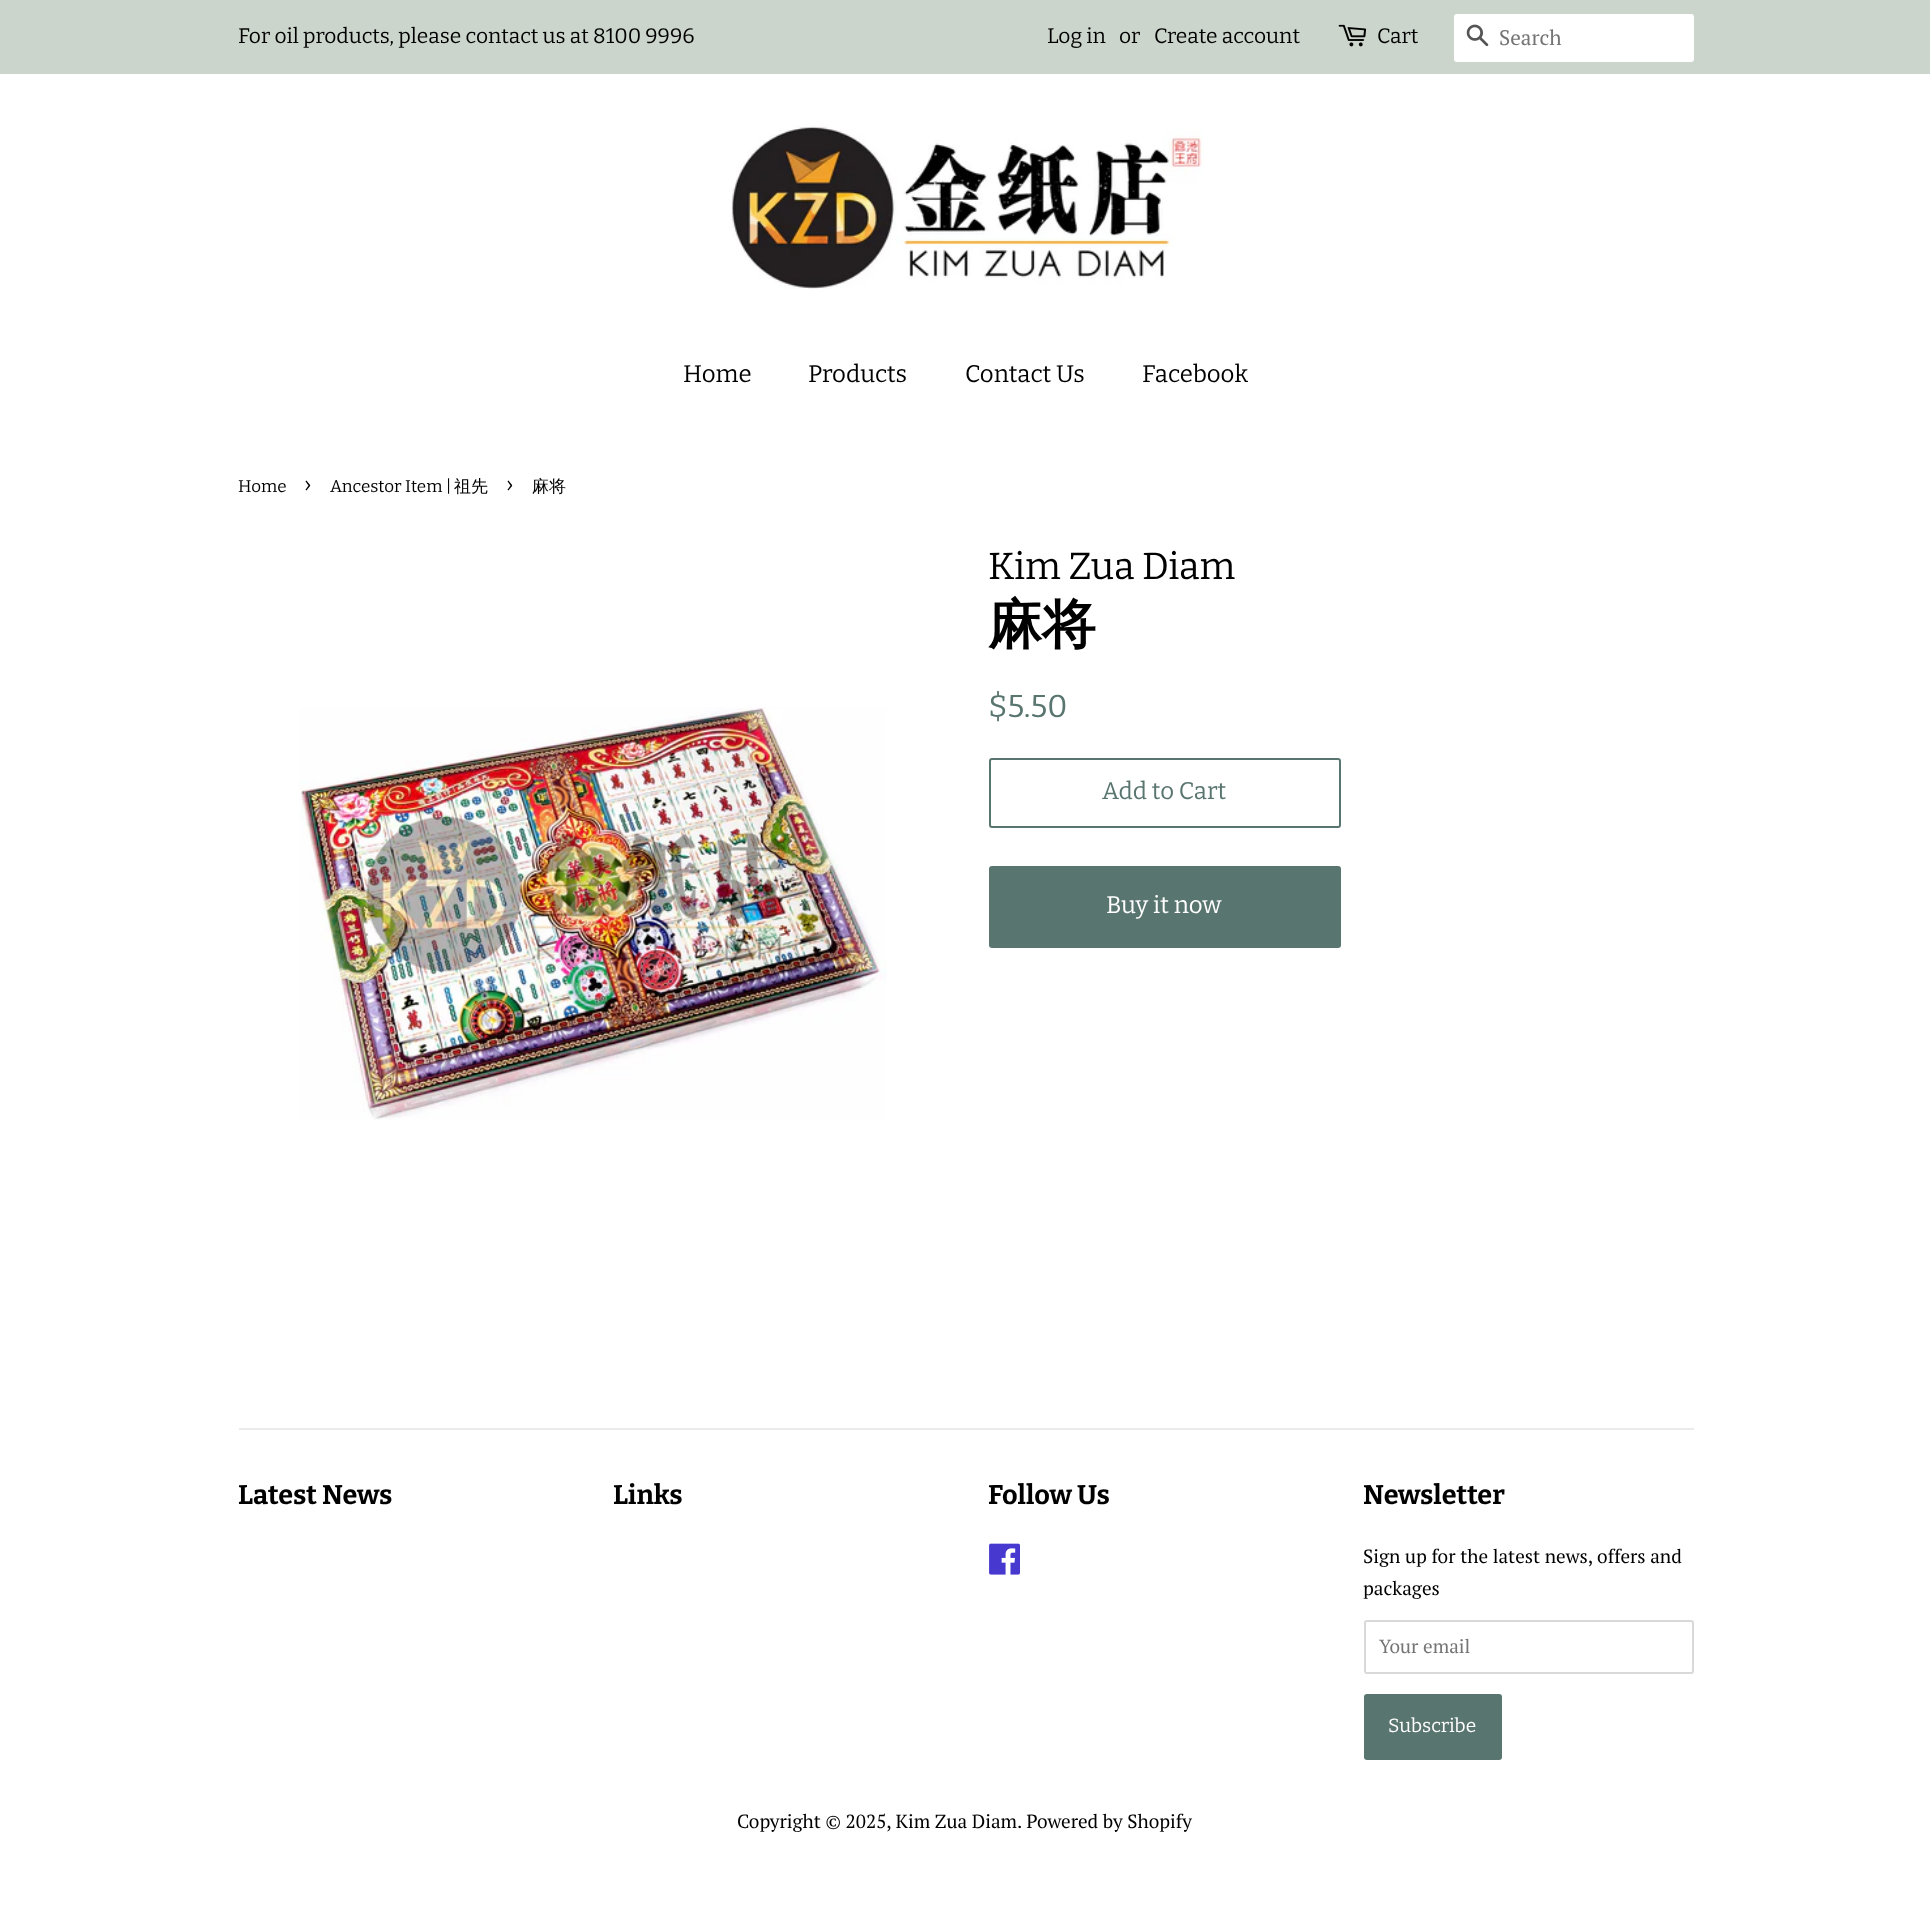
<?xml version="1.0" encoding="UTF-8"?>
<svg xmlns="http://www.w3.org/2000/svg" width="1930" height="1926">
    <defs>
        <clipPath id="clip1"><rect x="239" y="20" width="456" height="36"/></clipPath>
    </defs>
    <rect width="100%" height="100%" fill="#FFFFFF"/>
    <rect x="0" y="0" width="1930" height="74" fill="#CBD5CC"/>
    <g clip-path="url(#clip1)">
        <text x="238" y="43" font-family="Bitter" font-size="21" fill="#000000">For oil products, please contact us at 8100 9996</text>
    </g>
    <text x="1047" y="43" font-family="Bitter" font-size="21" fill="#000000">Log in</text>
    <text x="1119" y="43" font-family="Bitter" font-size="21" fill="#000000">or</text>
    <text x="1154" y="43" font-family="Bitter" font-size="21" fill="#000000">Create account</text>
    <image x="1338" y="24" width="29" height="23" href="img_01.png"/>
    <text x="1377" y="43" font-family="Bitter" font-size="21" fill="#000000">Cart</text>
    <rect x="1454" y="14" width="240" height="48" rx="3" fill="#FFFFFF"/>
    <image x="1466" y="24" width="23" height="23" href="img_02.png"/>
    <text x="1499" y="45" font-family="PT Serif" font-size="21" fill="#757575">Search</text>
    <image x="731" y="125" width="473" height="164" href="img_03.png"/>
    <text x="683" y="382" font-family="Bitter" font-size="24" fill="#000000">Home</text>
    <text x="808" y="382" font-family="Bitter" font-size="24" fill="#000000">Products</text>
    <text x="965" y="382" font-family="Bitter" font-size="24" fill="#000000">Contact Us</text>
    <text x="1142" y="382" font-family="Bitter" font-size="24" fill="#000000">Facebook</text>
    <text x="238" y="492" font-family="Bitter" font-size="17" fill="#000000">Home</text>
    <text x="304" y="492" font-family="Bitter" font-size="24" fill="#000000">›</text>
    <text x="330" y="492" font-family="Bitter" font-size="17" fill="#000000">Ancestor Item |</text>
    <text x="454" y="492" font-family="WenQuanYi Zen Hei" font-size="17" font-weight="500" fill="#000000">祖先</text>
    <text x="506" y="492" font-family="Bitter" font-size="24" fill="#000000">›</text>
    <text x="532" y="492" font-family="WenQuanYi Zen Hei" font-size="17" font-weight="500" fill="#000000">麻将</text>
    <image x="299" y="707" width="588" height="413" href="img_04.png"/>
    <text x="988" y="579" font-family="Bitter" font-size="37.5" fill="#000000">Kim Zua Diam</text>
    <text x="988" y="643" font-family="WenQuanYi Zen Hei" font-size="54" font-weight="700" fill="#000000">麻将</text>
    <text x="988" y="717" font-family="Bitter" font-size="31.5" fill="#59756F">$5.50</text>
    <rect x="990" y="759" width="350" height="68" rx="2" fill="none" stroke="#59756F" stroke-width="2"/>
    <text x="1102" y="799" font-family="Bitter" font-size="24" fill="#59756F">Add to Cart</text>
    <rect x="989" y="866" width="352" height="82" rx="3" fill="#59756F"/>
    <text x="1106" y="913" font-family="Bitter" font-size="24" fill="#FFFFFF">Buy it now</text>
    <rect x="239" y="1428" width="1455" height="2" fill="#EBEBEB"/>
    <text x="238" y="1504" font-family="Bitter" font-size="27" font-weight="700" fill="#000000">Latest News</text>
    <text x="613" y="1504" font-family="Bitter" font-size="27" font-weight="700" fill="#000000">Links</text>
    <text x="988" y="1504" font-family="Bitter" font-size="27" font-weight="700" fill="#000000">Follow Us</text>
    <image x="989" y="1543" width="31" height="32" href="img_05.png"/>
    <text x="1363" y="1504" font-family="Bitter" font-size="27" font-weight="700" fill="#000000">Newsletter</text>
    <text font-family="PT Serif" font-size="19.1" fill="#000000">
        <tspan x="1363" y="1563">Sign up for the latest news, offers and</tspan>
        <tspan x="1363" y="1595">packages</tspan>
    </text>
    <rect x="1365" y="1621" width="328" height="52" rx="2" fill="none" stroke="#D9D9D9" stroke-width="2"/>
    <text x="1379" y="1653" font-family="PT Serif" font-size="19.1" fill="#757575">Your email</text>
    <rect x="1364" y="1694" width="138" height="66" rx="3" fill="#59756F"/>
    <text x="1388" y="1732" font-family="Bitter" font-size="19.1" fill="#FFFFFF">Subscribe</text>
    <text x="737" y="1828" font-family="PT Serif" font-size="19.1" fill="#000000">Copyright © 2025, Kim Zua Diam. Powered by Shopify</text>
</svg>
